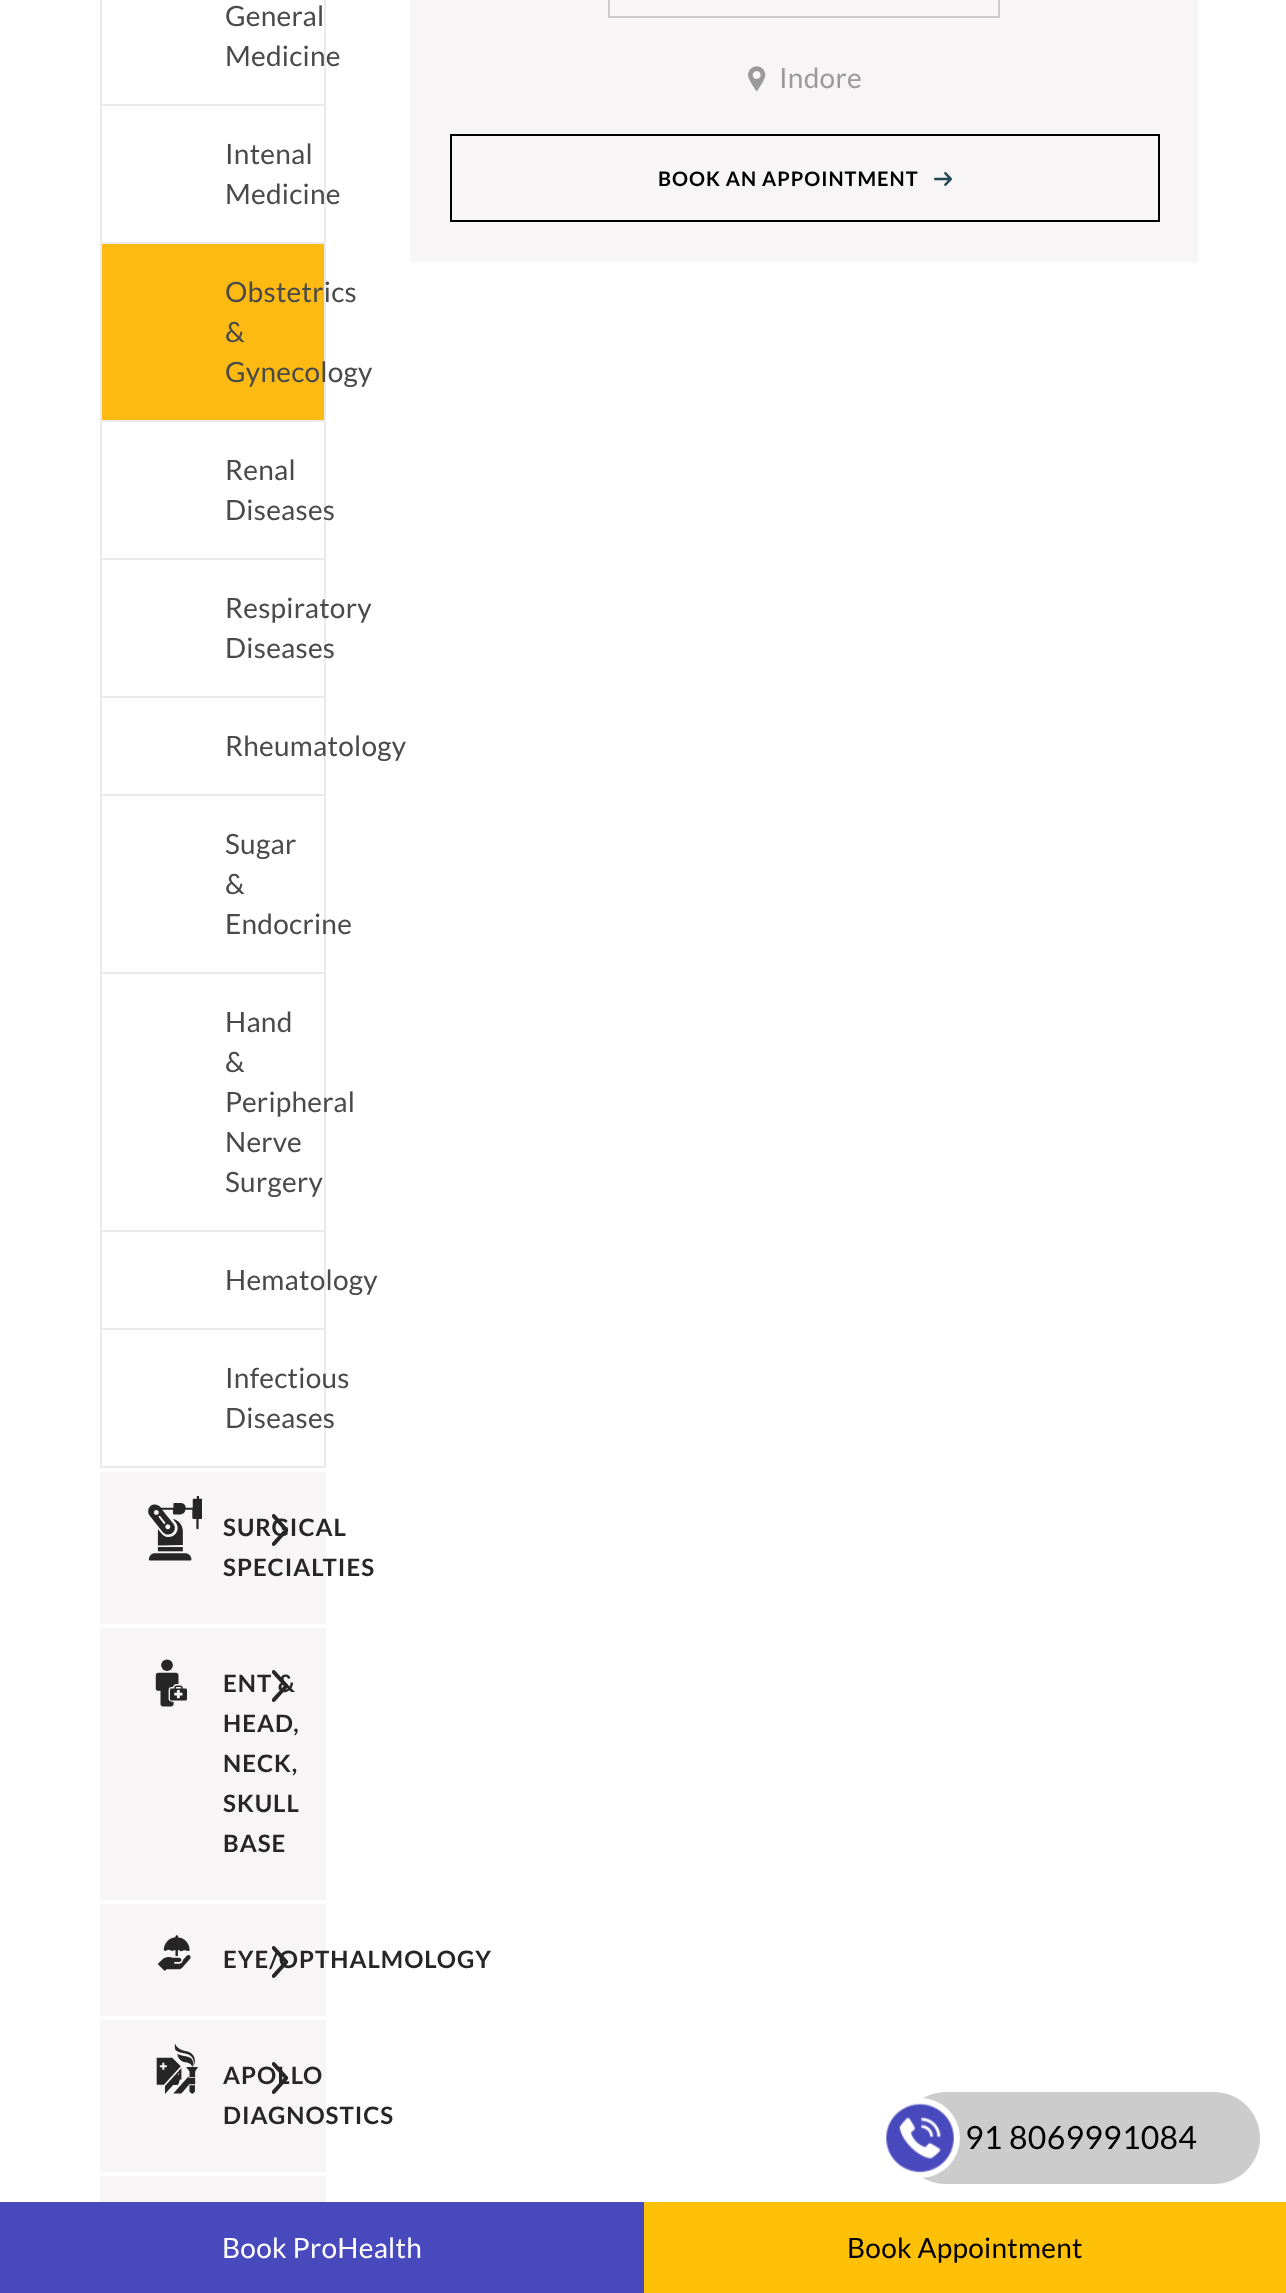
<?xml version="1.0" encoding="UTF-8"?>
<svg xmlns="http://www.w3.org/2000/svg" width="1286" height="2293">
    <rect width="100%" height="100%" fill="#FFFFFF"/>
    <rect x="324" y="0" width="2" height="1468" fill="#EAEAEA"/>
    <rect x="100" y="104" width="226" height="2" fill="#EAEAEA"/>
    <rect x="100" y="0" width="2" height="106" fill="#EAEAEA"/>
    <text font-family="Lato" font-size="28" letter-spacing="0.25" fill="#4A4A4A">
        <tspan x="225" y="26">General</tspan>
        <tspan x="225" y="66">Medicine</tspan>
    </text>
    <rect x="100" y="242" width="226" height="2" fill="#EAEAEA"/>
    <rect x="100" y="106" width="2" height="138" fill="#EAEAEA"/>
    <text font-family="Lato" font-size="28" letter-spacing="0.25" fill="#4A4A4A">
        <tspan x="225" y="164">Intenal</tspan>
        <tspan x="225" y="204">Medicine</tspan>
    </text>
    <rect x="102" y="244" width="222" height="176" fill="#FCBA12"/>
    <rect x="100" y="420" width="226" height="2" fill="#EAEAEA"/>
    <rect x="100" y="244" width="2" height="178" fill="#EAEAEA"/>
    <text font-family="Lato" font-size="28" letter-spacing="0.25" fill="#4A4A4A">
        <tspan x="225" y="302">Obstetrics</tspan>
        <tspan x="225" y="342">&amp;</tspan>
        <tspan x="225" y="382">Gynecology</tspan>
    </text>
    <rect x="100" y="558" width="226" height="2" fill="#EAEAEA"/>
    <rect x="100" y="422" width="2" height="138" fill="#EAEAEA"/>
    <text font-family="Lato" font-size="28" letter-spacing="0.25" fill="#4A4A4A">
        <tspan x="225" y="480">Renal</tspan>
        <tspan x="225" y="520">Diseases</tspan>
    </text>
    <rect x="100" y="696" width="226" height="2" fill="#EAEAEA"/>
    <rect x="100" y="560" width="2" height="138" fill="#EAEAEA"/>
    <text font-family="Lato" font-size="28" letter-spacing="0.25" fill="#4A4A4A">
        <tspan x="225" y="618">Respiratory</tspan>
        <tspan x="225" y="658">Diseases</tspan>
    </text>
    <rect x="100" y="794" width="226" height="2" fill="#EAEAEA"/>
    <rect x="100" y="698" width="2" height="98" fill="#EAEAEA"/>
    <text x="225" y="756" font-family="Lato" font-size="28" letter-spacing="0.25" fill="#4A4A4A">Rheumatology</text>
    <rect x="100" y="972" width="226" height="2" fill="#EAEAEA"/>
    <rect x="100" y="796" width="2" height="178" fill="#EAEAEA"/>
    <text font-family="Lato" font-size="28" letter-spacing="0.25" fill="#4A4A4A">
        <tspan x="225" y="854">Sugar</tspan>
        <tspan x="225" y="894">&amp;</tspan>
        <tspan x="225" y="934">Endocrine</tspan>
    </text>
    <rect x="100" y="1230" width="226" height="2" fill="#EAEAEA"/>
    <rect x="100" y="974" width="2" height="258" fill="#EAEAEA"/>
    <text font-family="Lato" font-size="28" letter-spacing="0.25" fill="#4A4A4A">
        <tspan x="225" y="1032">Hand</tspan>
        <tspan x="225" y="1072">&amp;</tspan>
        <tspan x="225" y="1112">Peripheral</tspan>
        <tspan x="225" y="1152">Nerve</tspan>
        <tspan x="225" y="1192">Surgery</tspan>
    </text>
    <rect x="100" y="1328" width="226" height="2" fill="#EAEAEA"/>
    <rect x="100" y="1232" width="2" height="98" fill="#EAEAEA"/>
    <text x="225" y="1290" font-family="Lato" font-size="28" letter-spacing="0.25" fill="#4A4A4A">Hematology</text>
    <rect x="100" y="1466" width="226" height="2" fill="#EAEAEA"/>
    <rect x="100" y="1330" width="2" height="138" fill="#EAEAEA"/>
    <text font-family="Lato" font-size="28" letter-spacing="0.25" fill="#4A4A4A">
        <tspan x="225" y="1388">Infectious</tspan>
        <tspan x="225" y="1428">Diseases</tspan>
    </text>
    <rect x="100" y="1472" width="226" height="152" fill="#F7F5F5"/>
    <image x="148" y="1496" width="54" height="65" href="img_01.png"/>
    <text x="223" y="1536" font-family="Lato" font-size="24" font-weight="700" letter-spacing="1" fill="#262626">SURGICAL</text>
    <image x="272" y="1514" width="17" height="32" href="img_02.png"/>
    <text x="223" y="1576" font-family="Lato" font-size="24" font-weight="700" letter-spacing="1" fill="#262626">SPECIALTIES</text>
    <rect x="100" y="1628" width="226" height="272" fill="#F7F5F5"/>
    <image x="155" y="1659" width="33" height="48" href="img_03.png"/>
    <text x="223" y="1692" font-family="Lato" font-size="24" font-weight="700" letter-spacing="1" fill="#262626">ENT &amp;</text>
    <image x="272" y="1670" width="16" height="32" href="img_04.png"/>
    <text font-family="Lato" font-size="24" font-weight="700" letter-spacing="1" fill="#262626">
        <tspan x="223" y="1732">HEAD,</tspan>
        <tspan x="223" y="1772">NECK,</tspan>
        <tspan x="223" y="1812">SKULL</tspan>
        <tspan x="223" y="1852">BASE</tspan>
    </text>
    <rect x="100" y="1904" width="226" height="112" fill="#F7F5F5"/>
    <image x="157" y="1935" width="34" height="36" href="img_05.png"/>
    <text x="223" y="1968" font-family="Lato" font-size="24" font-weight="700" letter-spacing="1" fill="#262626">EYE/OPTHALMOLOGY</text>
    <image x="272" y="1946" width="17" height="32" href="img_06.png"/>
    <rect x="100" y="2020" width="226" height="152" fill="#F7F5F5"/>
    <image x="156" y="2044" width="42" height="50" href="img_07.png"/>
    <text x="223" y="2084" font-family="Lato" font-size="24" font-weight="700" letter-spacing="1" fill="#262626">APOLLO</text>
    <image x="272" y="2062" width="17" height="32" href="img_08.png"/>
    <text x="223" y="2124" font-family="Lato" font-size="24" font-weight="700" letter-spacing="1" fill="#262626">DIAGNOSTICS</text>
    <rect x="100" y="2176" width="226" height="26" fill="#F7F5F5"/>
    <rect x="410" y="0" width="788" height="262" fill="#F7F5F5"/>
    <rect x="609" y="-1" width="390" height="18" fill="none" stroke="#CCCCCC" stroke-width="2"/>
    <image x="748" y="66" width="18" height="26" href="img_09.png"/>
    <text x="779" y="88" font-family="Lato" font-size="28" letter-spacing="0.25" fill="#9A9A9A">Indore</text>
    <rect x="451" y="135" width="708" height="86" fill="none" stroke="#000000" stroke-width="2"/>
    <text x="658" y="186" font-family="Lato" font-size="20" font-weight="700" letter-spacing="1" fill="#000000">BOOK AN APPOINTMENT</text>
    <image x="934" y="172" width="18" height="14" href="img_10.png"/>
    <rect x="900" y="2092" width="360" height="92" rx="46" fill="#CCCCCC"/>
    <circle cx="920" cy="2138" r="40" fill="#FFFFFF"/>
    <image x="886" y="2103" width="68" height="70" href="img_11.png"/>
    <text x="965" y="2149" font-family="Lato" font-size="32" letter-spacing="0.25" fill="#000000">91 8069991084</text>
    <rect x="0" y="2202" width="644" height="91" fill="#4949BE"/>
    <text x="222" y="2258" font-family="Lato" font-size="28" letter-spacing="0.25" fill="#FFFFFF">Book ProHealth</text>
    <rect x="644" y="2202" width="642" height="91" fill="#FFC107"/>
    <text x="847" y="2258" font-family="Lato" font-size="28" letter-spacing="0.25" fill="#000000">Book Appointment</text>
</svg>
